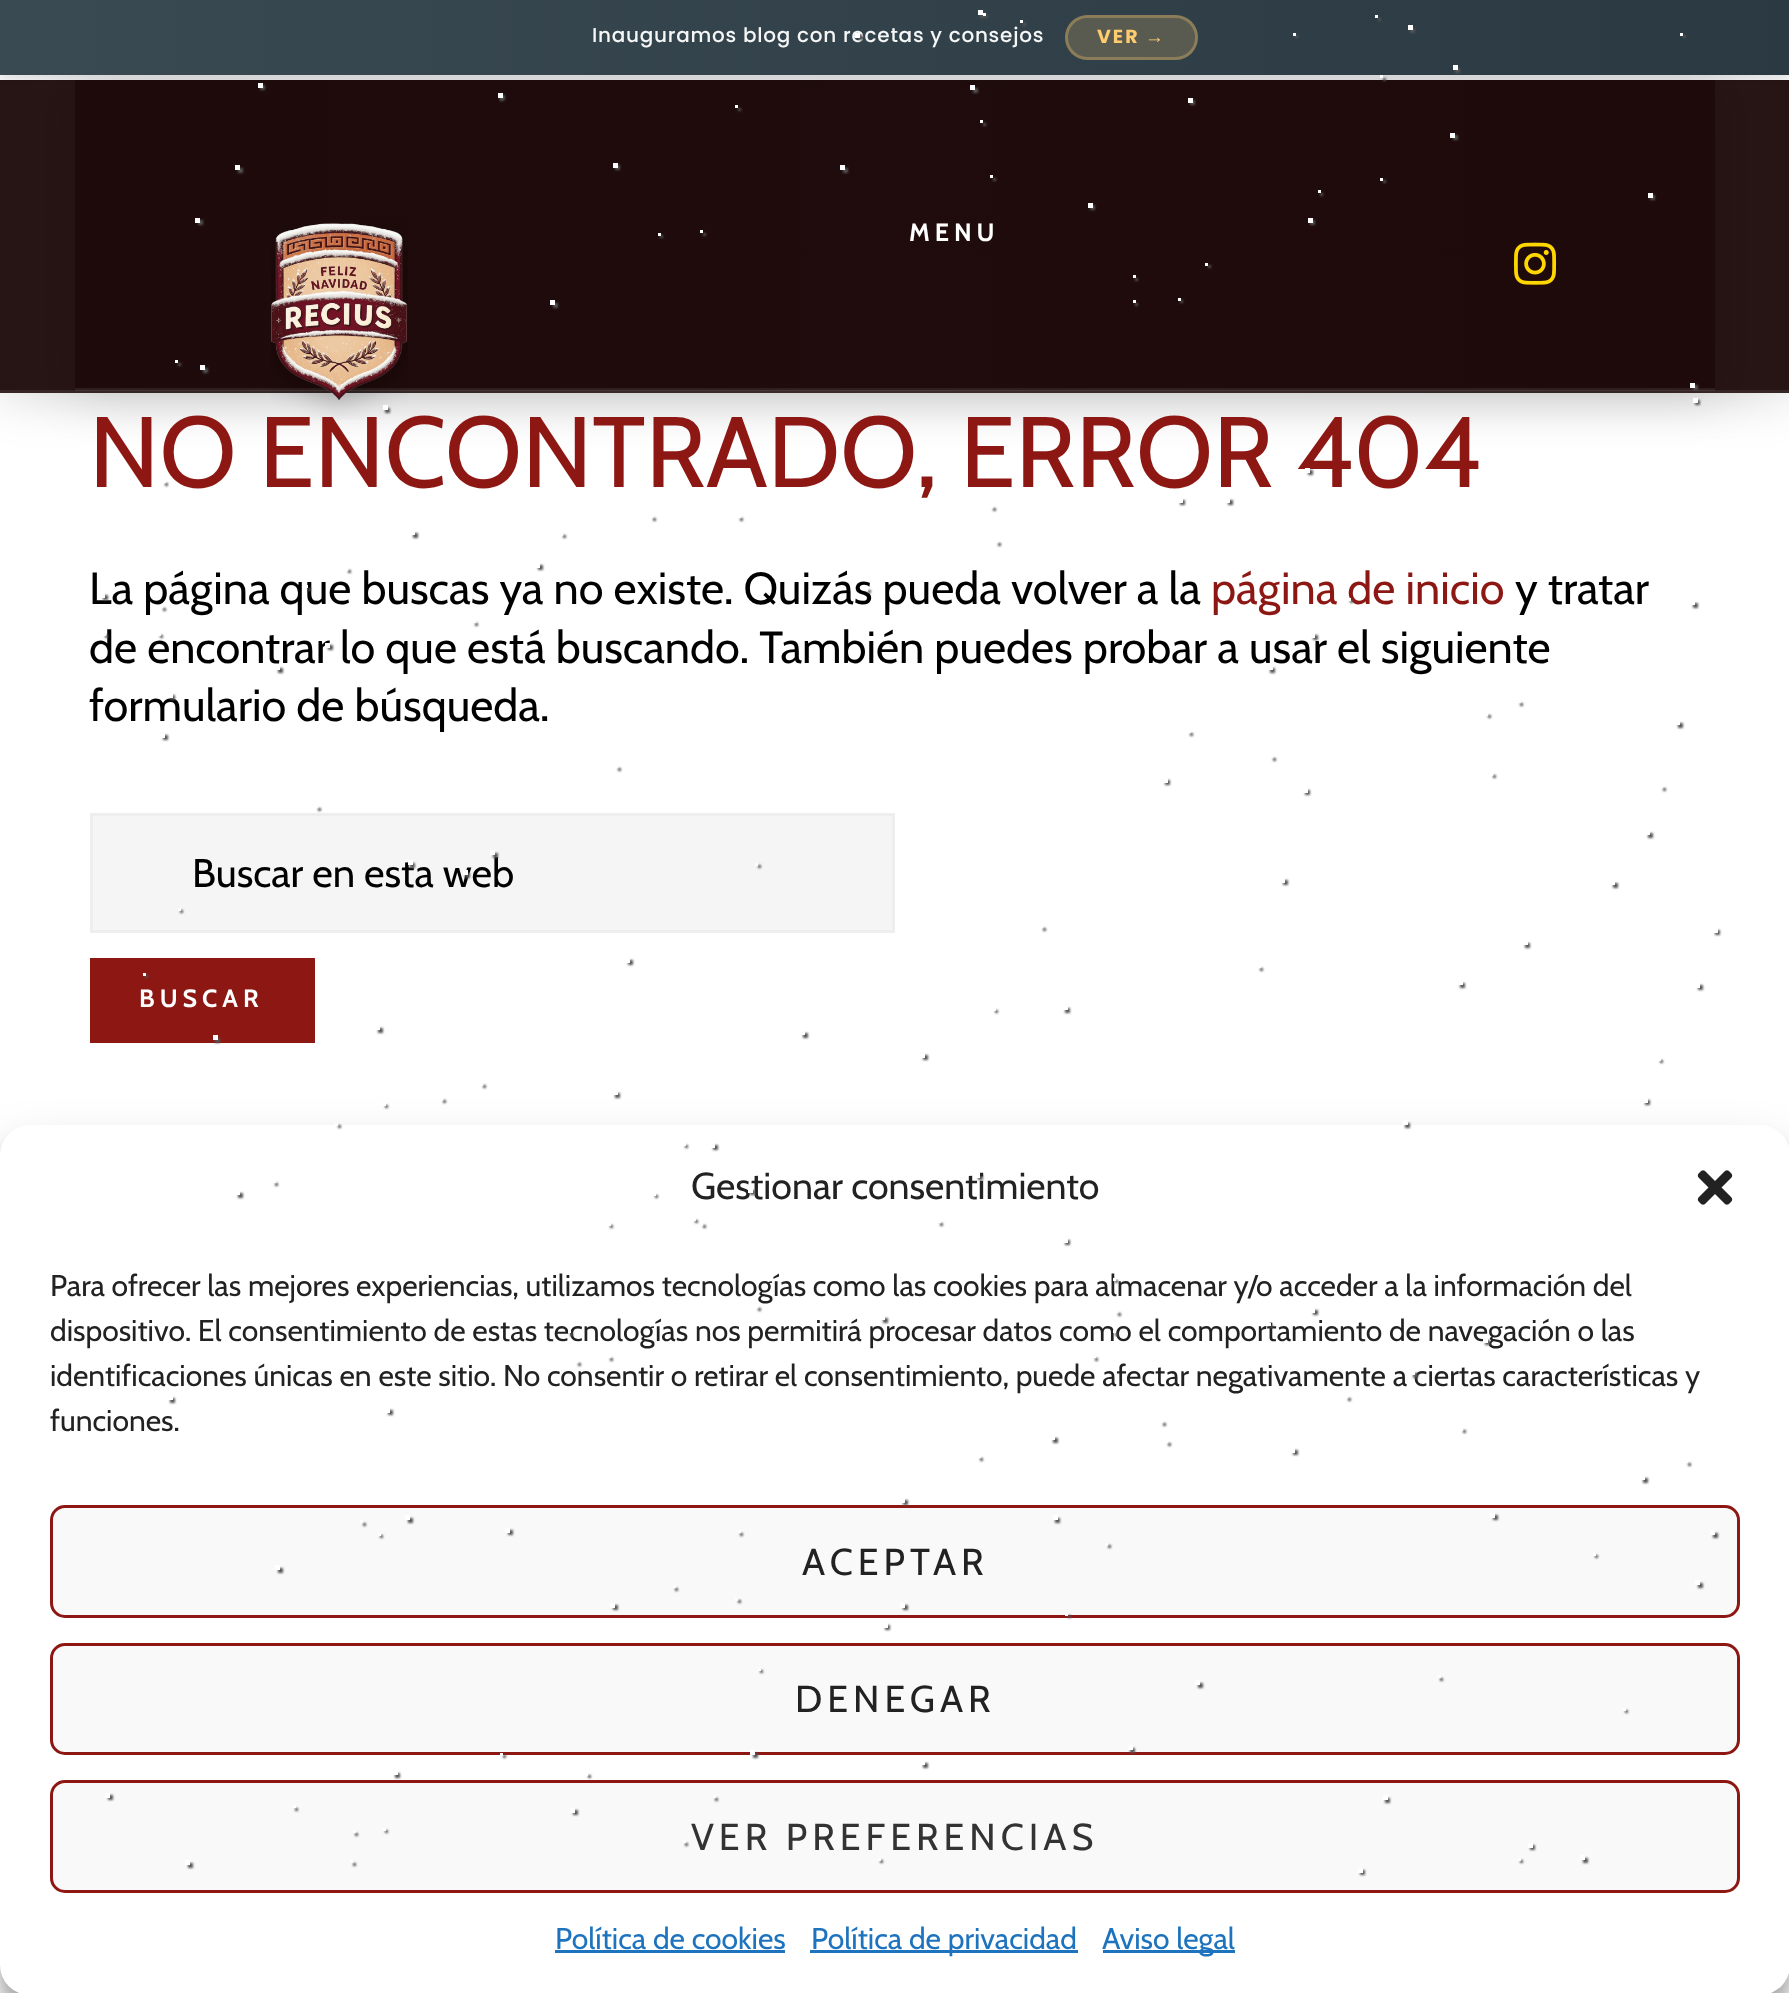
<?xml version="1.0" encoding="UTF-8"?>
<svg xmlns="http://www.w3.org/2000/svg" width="1789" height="1993">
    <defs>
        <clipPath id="clip1"><path d="M 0 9 H 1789 V 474 H 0 Z M 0 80 H 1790 V 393 H 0 Z" clip-rule="evenodd"/></clipPath>
        <filter id="blur1" x="-50%" y="-200%" width="200%" height="500%"><feGaussianBlur stdDeviation="25"/></filter>
        <linearGradient id="g1" gradientUnits="userSpaceOnUse" x1="0" y1="235" x2="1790" y2="235"><stop offset="0" stop-color="#1E0A0A" stop-opacity="0.96"/><stop offset="0.5" stop-color="#1E0A0A" stop-opacity="0.92"/><stop offset="1" stop-color="#1E0A0A" stop-opacity="0.96"/></linearGradient>
        <clipPath id="clip2"><path d="M 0 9 H 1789 V 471 H 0 Z M 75 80 H 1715 V 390 H 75 Z" clip-rule="evenodd"/></clipPath>
        <linearGradient id="g2" gradientUnits="userSpaceOnUse" x1="75" y1="234" x2="1715" y2="234"><stop offset="0" stop-color="#1E0A0A" stop-opacity="0.96"/><stop offset="0.5" stop-color="#1E0A0A" stop-opacity="0.92"/><stop offset="1" stop-color="#1E0A0A" stop-opacity="0.96"/></linearGradient>
        <filter id="blur2" x="-50%" y="-200%" width="200%" height="500%"><feGaussianBlur stdDeviation="6"/></filter>
        <linearGradient id="g3" gradientUnits="userSpaceOnUse" x1="0" y1="38" x2="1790" y2="37"><stop offset="0" stop-color="#3A4A52"/><stop offset="1" stop-color="#2A3942"/></linearGradient>
        <filter id="blur3" x="-50%" y="-200%" width="200%" height="500%"><feGaussianBlur stdDeviation="1"/></filter>
        <clipPath id="clip3"><path d="M 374 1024 H 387 V 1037 H 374 Z M 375 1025 H 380 V 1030 H 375 Z" clip-rule="evenodd"/></clipPath>
        <filter id="blur4" x="-50%" y="-200%" width="200%" height="500%"><feGaussianBlur stdDeviation="7.5"/></filter>
        <clipPath id="clip4"><path d="M 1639 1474 H 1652 V 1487 H 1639 Z M 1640 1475 H 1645 V 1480 H 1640 Z" clip-rule="evenodd"/></clipPath>
    </defs>
    <rect width="100%" height="100%" fill="#FFFFFF"/>
    <g clip-path="url(#clip1)">
        <rect x="0" y="85" width="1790" height="313" fill="#000000" fill-opacity="0.15" filter="url(#blur1)"/>
    </g>
    <rect x="0" y="80" width="1789" height="313" fill="url(#g1)"/>
    <rect x="0" y="390" width="1789" height="3" fill="#FFFFFF" fill-opacity="0.08"/>
    <g clip-path="url(#clip2)">
        <rect x="75" y="85" width="1640" height="310" fill="#000000" fill-opacity="0.15" filter="url(#blur1)"/>
    </g>
    <rect x="75" y="80" width="1640" height="310" fill="url(#g2)"/>
    <rect x="0" y="3" width="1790" height="75" fill="#000000" fill-opacity="0.1" filter="url(#blur2)"/>
    <rect x="0" y="0" width="1789" height="75" fill="url(#g3)"/>
    <rect x="980" y="13" width="5" height="5" fill="#555555" filter="url(#blur3)"/>
    <rect x="978" y="10" width="5" height="5" fill="#FFFFFF"/>
    <rect x="985" y="15" width="3" height="3" fill="#555555" filter="url(#blur3)"/>
    <rect x="983" y="13" width="3" height="3" fill="#FFFFFF"/>
    <rect x="1023" y="23" width="3" height="3" fill="#555555" filter="url(#blur3)"/>
    <rect x="1020" y="20" width="3" height="3" fill="#FFFFFF"/>
    <rect x="1378" y="18" width="3" height="3" fill="#555555" filter="url(#blur3)"/>
    <rect x="1375" y="15" width="3" height="3" fill="#FFFFFF"/>
    <rect x="1410" y="28" width="5" height="5" fill="#555555" filter="url(#blur3)"/>
    <rect x="1408" y="25" width="5" height="5" fill="#FFFFFF"/>
    <text x="592" y="42" font-family="Poppins" font-size="20" font-weight="500" letter-spacing="0.75" fill="#F5F6F6">Inauguramos blog con recetas y consejos</text>
    <rect x="1065" y="15" width="133" height="45" rx="22.5" fill="#595B50"/>
    <rect x="1066.5" y="16.5" width="130" height="42" rx="21" fill="none" stroke="#FFCC70" stroke-opacity="0.3" stroke-width="3"/>
    <text x="1097" y="43" font-family="Poppins" font-size="19" font-weight="700" letter-spacing="2" fill="#FFCC70">VER</text>
    <text x="1145" y="43" font-family="Liberation Sans" font-size="19" font-weight="700" letter-spacing="2" fill="#FFCC70">→</text>
    <rect x="858" y="35" width="5" height="5" fill="#555555" filter="url(#blur3)"/>
    <rect x="855" y="33" width="5" height="5" fill="#FFFFFF"/>
    <rect x="1295" y="35" width="3" height="3" fill="#555555" filter="url(#blur3)"/>
    <rect x="1293" y="33" width="3" height="3" fill="#FFFFFF"/>
    <rect x="1683" y="35" width="3" height="3" fill="#555555" filter="url(#blur3)"/>
    <rect x="1680" y="33" width="3" height="3" fill="#FFFFFF"/>
    <rect x="1455" y="68" width="5" height="5" fill="#555555" filter="url(#blur3)"/>
    <rect x="1453" y="65" width="5" height="5" fill="#FFFFFF"/>
    <rect x="1383" y="78" width="3" height="3" fill="#555555" filter="url(#blur3)"/>
    <rect x="1380" y="75" width="3" height="3" fill="#FFFFFF"/>
    <rect x="260" y="85" width="5" height="5" fill="#555555" filter="url(#blur3)"/>
    <rect x="258" y="83" width="5" height="5" fill="#FFFFFF"/>
    <rect x="500" y="95" width="5" height="5" fill="#555555" filter="url(#blur3)"/>
    <rect x="500" y="98" width="3" height="3" fill="#555555" filter="url(#blur3)"/>
    <rect x="498" y="93" width="5" height="5" fill="#FFFFFF"/>
    <rect x="973" y="88" width="5" height="5" fill="#555555" filter="url(#blur3)"/>
    <rect x="970" y="85" width="5" height="5" fill="#FFFFFF"/>
    <rect x="738" y="108" width="3" height="3" fill="#555555" filter="url(#blur3)"/>
    <rect x="735" y="105" width="3" height="3" fill="#FFFFFF"/>
    <rect x="1190" y="100" width="5" height="5" fill="#555555" filter="url(#blur3)"/>
    <rect x="1188" y="98" width="5" height="5" fill="#FFFFFF"/>
    <rect x="983" y="123" width="3" height="3" fill="#555555" filter="url(#blur3)"/>
    <rect x="980" y="120" width="3" height="3" fill="#FFFFFF"/>
    <rect x="1453" y="135" width="5" height="5" fill="#555555" filter="url(#blur3)"/>
    <rect x="1450" y="133" width="5" height="5" fill="#FFFFFF"/>
    <rect x="238" y="168" width="5" height="5" fill="#555555" filter="url(#blur3)"/>
    <rect x="235" y="165" width="5" height="5" fill="#FFFFFF"/>
    <rect x="615" y="165" width="5" height="5" fill="#555555" filter="url(#blur3)"/>
    <rect x="613" y="163" width="5" height="5" fill="#FFFFFF"/>
    <rect x="843" y="168" width="5" height="5" fill="#555555" filter="url(#blur3)"/>
    <rect x="840" y="165" width="5" height="5" fill="#FFFFFF"/>
    <rect x="993" y="178" width="3" height="3" fill="#555555" filter="url(#blur3)"/>
    <rect x="990" y="175" width="3" height="3" fill="#FFFFFF"/>
    <rect x="1383" y="180" width="3" height="3" fill="#555555" filter="url(#blur3)"/>
    <rect x="1380" y="178" width="3" height="3" fill="#FFFFFF"/>
    <rect x="1320" y="193" width="3" height="3" fill="#555555" filter="url(#blur3)"/>
    <rect x="1318" y="190" width="3" height="3" fill="#FFFFFF"/>
    <rect x="1650" y="195" width="5" height="5" fill="#555555" filter="url(#blur3)"/>
    <rect x="1648" y="193" width="5" height="5" fill="#FFFFFF"/>
    <rect x="1090" y="205" width="5" height="5" fill="#555555" filter="url(#blur3)"/>
    <rect x="1088" y="203" width="5" height="5" fill="#FFFFFF"/>
    <rect x="198" y="220" width="5" height="5" fill="#555555" filter="url(#blur3)"/>
    <rect x="195" y="218" width="5" height="5" fill="#FFFFFF"/>
    <rect x="1310" y="220" width="5" height="5" fill="#555555" filter="url(#blur3)"/>
    <rect x="1308" y="218" width="5" height="5" fill="#FFFFFF"/>
    <rect x="75" y="388" width="1640" height="3" fill="#FFFFFF" fill-opacity="0.08"/>
    <text x="89" y="487" font-family="Cabin" font-size="100" fill="#8C1713">NO ENCONTRADO, ERROR 404</text>
    <image x="271" y="223" width="137" height="197" href="img_01.png"/>
    <text x="909" y="241" font-family="Cabin" font-size="25" font-weight="700" letter-spacing="5" fill="#FFFFFF">MENU</text>
    <image x="1514" y="242" width="43" height="43" href="img_02.png"/>
    <text x="89" y="604" font-family="Cabin" font-size="45" fill="#000000">La página que buscas ya no existe. Quizás pueda volver a la</text>
    <text x="1211" y="604" font-family="Cabin" font-size="45" fill="#8C1713">página de inicio</text>
    <text x="1515" y="604" font-family="Cabin" font-size="45" fill="#000000">y tratar</text>
    <text font-family="Cabin" font-size="45" fill="#000000">
        <tspan x="89" y="663">de encontrar lo que está buscando. También puedes probar a usar el siguiente</tspan>
        <tspan x="89" y="721">formulario de búsqueda.</tspan>
    </text>
    <rect x="91.5" y="814.5" width="802" height="117" fill="#F5F5F5" stroke="#EEEEEE" stroke-width="3"/>
    <text x="192" y="887" font-family="Cabin" font-size="40" fill="#000000">Buscar en esta web</text>
    <rect x="90" y="958" width="225" height="85" fill="#8C1713"/>
    <text x="139" y="1007" font-family="Cabin" font-size="25" font-weight="700" letter-spacing="5" fill="#FFFFFF">BUSCAR</text>
    <rect x="660" y="235" width="3" height="3" fill="#555555" filter="url(#blur3)"/>
    <rect x="658" y="233" width="3" height="3" fill="#FFFFFF"/>
    <rect x="703" y="233" width="3" height="3" fill="#555555" filter="url(#blur3)"/>
    <rect x="700" y="230" width="3" height="3" fill="#FFFFFF"/>
    <rect x="1208" y="265" width="3" height="3" fill="#555555" filter="url(#blur3)"/>
    <rect x="1205" y="263" width="3" height="3" fill="#FFFFFF"/>
    <rect x="1135" y="278" width="3" height="3" fill="#555555" filter="url(#blur3)"/>
    <rect x="1133" y="275" width="3" height="3" fill="#FFFFFF"/>
    <rect x="553" y="303" width="5" height="5" fill="#555555" filter="url(#blur3)"/>
    <rect x="550" y="300" width="5" height="5" fill="#FFFFFF"/>
    <rect x="1135" y="303" width="3" height="3" fill="#555555" filter="url(#blur3)"/>
    <rect x="1133" y="300" width="3" height="3" fill="#FFFFFF"/>
    <rect x="1180" y="300" width="3" height="3" fill="#555555" filter="url(#blur3)"/>
    <rect x="1178" y="298" width="3" height="3" fill="#FFFFFF"/>
    <rect x="178" y="363" width="3" height="3" fill="#555555" filter="url(#blur3)"/>
    <rect x="175" y="360" width="3" height="3" fill="#FFFFFF"/>
    <rect x="203" y="368" width="5" height="5" fill="#555555" filter="url(#blur3)"/>
    <rect x="200" y="365" width="5" height="5" fill="#FFFFFF"/>
    <rect x="1693" y="385" width="5" height="5" fill="#555555" filter="url(#blur3)"/>
    <rect x="1690" y="383" width="5" height="5" fill="#FFFFFF"/>
    <rect x="1695" y="400" width="5" height="5" fill="#555555" filter="url(#blur3)"/>
    <rect x="1693" y="398" width="5" height="5" fill="#FFFFFF"/>
    <rect x="385" y="408" width="5" height="5" fill="#555555" filter="url(#blur3)"/>
    <rect x="383" y="405" width="5" height="5" fill="#FFFFFF"/>
    <rect x="1308" y="470" width="5" height="5" fill="#555555" filter="url(#blur3)"/>
    <rect x="1305" y="468" width="5" height="5" fill="#FFFFFF"/>
    <rect x="165" y="483" width="3" height="3" fill="#555555" filter="url(#blur3)"/>
    <rect x="163" y="481" width="3" height="2" fill="#FFFFFF"/>
    <rect x="993" y="508" width="3" height="3" fill="#555555" filter="url(#blur3)"/>
    <rect x="990" y="506" width="3" height="2" fill="#FFFFFF"/>
    <rect x="1180" y="500" width="5" height="5" fill="#555555" filter="url(#blur3)"/>
    <rect x="1178" y="498" width="5" height="5" fill="#FFFFFF"/>
    <rect x="1228" y="500" width="5" height="5" fill="#555555" filter="url(#blur3)"/>
    <rect x="1225" y="498" width="5" height="5" fill="#FFFFFF"/>
    <rect x="653" y="518" width="3" height="3" fill="#555555" filter="url(#blur3)"/>
    <rect x="650" y="516" width="3" height="2" fill="#FFFFFF"/>
    <rect x="740" y="518" width="3" height="3" fill="#555555" filter="url(#blur3)"/>
    <rect x="738" y="516" width="3" height="2" fill="#FFFFFF"/>
    <rect x="413" y="533" width="5" height="5" fill="#555555" filter="url(#blur3)"/>
    <rect x="410" y="531" width="5" height="4" fill="#FFFFFF"/>
    <rect x="563" y="535" width="3" height="3" fill="#555555" filter="url(#blur3)"/>
    <rect x="560" y="533" width="3" height="3" fill="#FFFFFF"/>
    <rect x="998" y="543" width="3" height="3" fill="#555555" filter="url(#blur3)"/>
    <rect x="995" y="541" width="3" height="2" fill="#FFFFFF"/>
    <rect x="348" y="570" width="3" height="3" fill="#555555" filter="url(#blur3)"/>
    <rect x="345" y="568" width="3" height="3" fill="#FFFFFF"/>
    <rect x="538" y="565" width="5" height="5" fill="#555555" filter="url(#blur3)"/>
    <rect x="535" y="563" width="5" height="5" fill="#FFFFFF"/>
    <rect x="103" y="595" width="5" height="5" fill="#555555" filter="url(#blur3)"/>
    <rect x="100" y="593" width="5" height="5" fill="#FFFFFF"/>
    <rect x="163" y="608" width="3" height="3" fill="#555555" filter="url(#blur3)"/>
    <rect x="160" y="606" width="3" height="2" fill="#FFFFFF"/>
    <rect x="308" y="588" width="3" height="3" fill="#555555" filter="url(#blur3)"/>
    <rect x="305" y="585" width="3" height="3" fill="#FFFFFF"/>
    <rect x="868" y="590" width="3" height="3" fill="#555555" filter="url(#blur3)"/>
    <rect x="865" y="588" width="3" height="3" fill="#FFFFFF"/>
    <rect x="1350" y="600" width="3" height="3" fill="#555555" filter="url(#blur3)"/>
    <rect x="1348" y="598" width="3" height="3" fill="#FFFFFF"/>
    <rect x="1693" y="603" width="5" height="5" fill="#555555" filter="url(#blur3)"/>
    <rect x="1690" y="601" width="5" height="4" fill="#FFFFFF"/>
    <rect x="475" y="623" width="3" height="3" fill="#555555" filter="url(#blur3)"/>
    <rect x="473" y="621" width="3" height="2" fill="#FFFFFF"/>
    <rect x="105" y="635" width="3" height="3" fill="#555555" filter="url(#blur3)"/>
    <rect x="103" y="633" width="3" height="3" fill="#FFFFFF"/>
    <rect x="160" y="635" width="3" height="3" fill="#555555" filter="url(#blur3)"/>
    <rect x="158" y="633" width="3" height="3" fill="#FFFFFF"/>
    <rect x="1313" y="635" width="5" height="5" fill="#555555" filter="url(#blur3)"/>
    <rect x="1310" y="633" width="5" height="5" fill="#FFFFFF"/>
    <rect x="328" y="645" width="5" height="5" fill="#555555" filter="url(#blur3)"/>
    <rect x="325" y="643" width="5" height="5" fill="#FFFFFF"/>
    <rect x="278" y="668" width="5" height="5" fill="#555555" filter="url(#blur3)"/>
    <rect x="275" y="666" width="5" height="4" fill="#FFFFFF"/>
    <rect x="1270" y="668" width="5" height="5" fill="#555555" filter="url(#blur3)"/>
    <rect x="1268" y="666" width="5" height="4" fill="#FFFFFF"/>
    <rect x="170" y="695" width="5" height="5" fill="#555555" filter="url(#blur3)"/>
    <rect x="168" y="693" width="5" height="5" fill="#FFFFFF"/>
    <rect x="1520" y="703" width="3" height="3" fill="#555555" filter="url(#blur3)"/>
    <rect x="1518" y="701" width="3" height="2" fill="#FFFFFF"/>
    <rect x="1488" y="715" width="3" height="3" fill="#555555" filter="url(#blur3)"/>
    <rect x="1485" y="713" width="3" height="3" fill="#FFFFFF"/>
    <rect x="1678" y="723" width="5" height="5" fill="#555555" filter="url(#blur3)"/>
    <rect x="1675" y="721" width="5" height="4" fill="#FFFFFF"/>
    <rect x="163" y="735" width="5" height="5" fill="#555555" filter="url(#blur3)"/>
    <rect x="160" y="733" width="5" height="5" fill="#FFFFFF"/>
    <rect x="1190" y="733" width="3" height="3" fill="#555555" filter="url(#blur3)"/>
    <rect x="1188" y="731" width="3" height="2" fill="#FFFFFF"/>
    <rect x="1273" y="758" width="3" height="3" fill="#555555" filter="url(#blur3)"/>
    <rect x="1270" y="756" width="3" height="2" fill="#FFFFFF"/>
    <rect x="618" y="768" width="3" height="3" fill="#555555" filter="url(#blur3)"/>
    <rect x="615" y="766" width="3" height="2" fill="#FFFFFF"/>
    <rect x="1165" y="780" width="5" height="5" fill="#555555" filter="url(#blur3)"/>
    <rect x="1163" y="778" width="5" height="5" fill="#FFFFFF"/>
    <rect x="1305" y="790" width="5" height="5" fill="#555555" filter="url(#blur3)"/>
    <rect x="1303" y="788" width="5" height="5" fill="#FFFFFF"/>
    <rect x="1493" y="775" width="3" height="3" fill="#555555" filter="url(#blur3)"/>
    <rect x="1490" y="773" width="3" height="3" fill="#FFFFFF"/>
    <rect x="1663" y="788" width="3" height="3" fill="#555555" filter="url(#blur3)"/>
    <rect x="1660" y="786" width="3" height="2" fill="#FFFFFF"/>
    <rect x="318" y="808" width="3" height="3" fill="#555555" filter="url(#blur3)"/>
    <rect x="315" y="806" width="3" height="2" fill="#FFFFFF"/>
    <rect x="1648" y="833" width="5" height="5" fill="#555555" filter="url(#blur3)"/>
    <rect x="1645" y="831" width="5" height="4" fill="#FFFFFF"/>
    <rect x="493" y="853" width="5" height="5" fill="#555555" filter="url(#blur3)"/>
    <rect x="490" y="850" width="5" height="5" fill="#FFFFFF"/>
    <rect x="410" y="863" width="5" height="5" fill="#555555" filter="url(#blur3)"/>
    <rect x="408" y="860" width="5" height="5" fill="#FFFFFF"/>
    <rect x="758" y="865" width="3" height="3" fill="#555555" filter="url(#blur3)"/>
    <rect x="755" y="863" width="3" height="3" fill="#FFFFFF"/>
    <rect x="465" y="873" width="5" height="5" fill="#555555" filter="url(#blur3)"/>
    <rect x="463" y="870" width="5" height="5" fill="#FFFFFF"/>
    <rect x="1283" y="880" width="5" height="5" fill="#555555" filter="url(#blur3)"/>
    <rect x="1280" y="878" width="5" height="5" fill="#FFFFFF"/>
    <rect x="1613" y="883" width="5" height="5" fill="#555555" filter="url(#blur3)"/>
    <rect x="1610" y="881" width="5" height="4" fill="#FFFFFF"/>
    <rect x="180" y="910" width="3" height="3" fill="#555555" filter="url(#blur3)"/>
    <rect x="178" y="908" width="3" height="3" fill="#FFFFFF"/>
    <rect x="1043" y="928" width="3" height="3" fill="#555555" filter="url(#blur3)"/>
    <rect x="1040" y="926" width="3" height="2" fill="#FFFFFF"/>
    <rect x="1715" y="930" width="5" height="5" fill="#555555" filter="url(#blur3)"/>
    <rect x="1713" y="928" width="5" height="5" fill="#FFFFFF"/>
    <rect x="1525" y="943" width="5" height="5" fill="#555555" filter="url(#blur3)"/>
    <rect x="1523" y="941" width="5" height="4" fill="#FFFFFF"/>
    <rect x="628" y="960" width="5" height="5" fill="#555555" filter="url(#blur3)"/>
    <rect x="625" y="958" width="5" height="5" fill="#FFFFFF"/>
    <rect x="1260" y="968" width="3" height="3" fill="#555555" filter="url(#blur3)"/>
    <rect x="1258" y="966" width="3" height="2" fill="#FFFFFF"/>
    <rect x="145" y="975" width="3" height="3" fill="#555555" filter="url(#blur3)"/>
    <rect x="143" y="973" width="3" height="3" fill="#FFFFFF"/>
    <rect x="1460" y="983" width="5" height="5" fill="#555555" filter="url(#blur3)"/>
    <rect x="1458" y="981" width="5" height="4" fill="#FFFFFF"/>
    <rect x="1698" y="985" width="5" height="5" fill="#555555" filter="url(#blur3)"/>
    <rect x="1695" y="983" width="5" height="5" fill="#FFFFFF"/>
    <rect x="995" y="1010" width="3" height="3" fill="#555555" filter="url(#blur3)"/>
    <rect x="993" y="1008" width="3" height="3" fill="#FFFFFF"/>
    <rect x="1065" y="1008" width="5" height="5" fill="#555555" filter="url(#blur3)"/>
    <rect x="1063" y="1006" width="5" height="4" fill="#FFFFFF"/>
    <rect x="215" y="1038" width="5" height="5" fill="#555555" filter="url(#blur3)"/>
    <rect x="213" y="1035" width="5" height="5" fill="#FFFFFF"/>
    <g clip-path="url(#clip3)">
        <rect x="378" y="1028" width="5" height="5" fill="#555555" filter="url(#blur3)"/>
    </g>
    <rect x="803" y="1033" width="5" height="5" fill="#555555" filter="url(#blur3)"/>
    <rect x="800" y="1031" width="5" height="4" fill="#FFFFFF"/>
    <rect x="923" y="1055" width="5" height="5" fill="#555555" filter="url(#blur3)"/>
    <rect x="920" y="1053" width="5" height="5" fill="#FFFFFF"/>
    <rect x="1660" y="1060" width="3" height="3" fill="#555555" filter="url(#blur3)"/>
    <rect x="1658" y="1058" width="3" height="3" fill="#FFFFFF"/>
    <rect x="483" y="1085" width="3" height="3" fill="#555555" filter="url(#blur3)"/>
    <rect x="0" y="1150" width="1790" height="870" rx="30" fill="#000000" fill-opacity="0.19" filter="url(#blur1)"/>
    <rect x="480" y="1083" width="3" height="3" fill="#FFFFFF"/>
    <rect x="385" y="1105" width="3" height="3" fill="#555555" filter="url(#blur3)"/>
    <rect x="383" y="1103" width="3" height="3" fill="#FFFFFF"/>
    <rect x="443" y="1100" width="3" height="3" fill="#555555" filter="url(#blur3)"/>
    <rect x="440" y="1098" width="3" height="3" fill="#FFFFFF"/>
    <rect x="615" y="1093" width="5" height="5" fill="#555555" filter="url(#blur3)"/>
    <rect x="613" y="1091" width="5" height="4" fill="#FFFFFF"/>
    <rect x="1645" y="1100" width="5" height="5" fill="#555555" filter="url(#blur3)"/>
    <rect x="1643" y="1098" width="5" height="5" fill="#FFFFFF"/>
    <rect x="0" y="1140" width="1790" height="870" rx="30" fill="#000000" fill-opacity="0.23" filter="url(#blur4)"/>
    <rect x="0" y="1125" width="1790" height="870" rx="30" fill="#FFFFFF"/>
    <rect x="338" y="1125" width="3" height="3" fill="#555555" filter="url(#blur3)"/>
    <rect x="335" y="1123" width="3" height="3" fill="#FFFFFF"/>
    <rect x="1405" y="1123" width="5" height="5" fill="#555555" filter="url(#blur3)"/>
    <rect x="1403" y="1120" width="5" height="5" fill="#FFFFFF"/>
    <rect x="685" y="1145" width="3" height="3" fill="#555555" filter="url(#blur3)"/>
    <rect x="683" y="1143" width="3" height="3" fill="#FFFFFF"/>
    <rect x="713" y="1145" width="5" height="5" fill="#555555" filter="url(#blur3)"/>
    <rect x="710" y="1143" width="5" height="5" fill="#FFFFFF"/>
    <rect x="978" y="1175" width="5" height="5" fill="#555555" filter="url(#blur3)"/>
    <text x="691" y="1199" font-family="Cabin" font-size="37.5" fill="#222222">Gestionar consentimiento</text>
    <rect x="975" y="1173" width="5" height="5" fill="#FFFFFF"/>
    <image x="1697" y="1170" width="36" height="35" href="img_03.png"/>
    <text font-family="Cabin" font-size="30" fill="#222222">
        <tspan x="50" y="1296">Para ofrecer las mejores experiencias, utilizamos tecnologías como las cookies para almacenar y/o acceder a la información del</tspan>
        <tspan x="50" y="1341">dispositivo. El consentimiento de estas tecnologías nos permitirá procesar datos como el comportamiento de navegación o las</tspan>
        <tspan x="50" y="1386">identificaciones únicas en este sitio. No consentir o retirar el consentimiento, puede afectar negativamente a ciertas características y</tspan>
        <tspan x="50" y="1431">funciones.</tspan>
    </text>
    <rect x="51.5" y="1506.5" width="1687" height="110" rx="13.5" fill="#F9F9F9" stroke="#8D1713" stroke-width="3"/>
    <text x="802" y="1575" font-family="Cabin" font-size="37.5" letter-spacing="5" fill="#222222">ACEPTAR</text>
    <rect x="51.5" y="1644.5" width="1687" height="109" rx="13.5" fill="#F9F9F9" stroke="#8D1713" stroke-width="3"/>
    <text x="795" y="1712" font-family="Cabin" font-size="37.5" letter-spacing="5" fill="#222222">DENEGAR</text>
    <rect x="51.5" y="1781.5" width="1687" height="110" rx="13.5" fill="#F9F9F9" stroke="#8D1713" stroke-width="3"/>
    <text x="691" y="1850" font-family="Cabin" font-size="37.5" letter-spacing="5" fill="#333333">VER PREFERENCIAS</text>
    <text x="555" y="1949" font-family="Cabin" font-size="30" fill="#1E73BE">Política de cookies</text>
    <rect x="555" y="1950" width="230" height="3" fill="#1E73BE"/>
    <rect x="810" y="1950" width="268" height="3" fill="#1E73BE"/>
    <text x="811" y="1949" font-family="Cabin" font-size="30" fill="#1E73BE">Política de privacidad</text>
    <rect x="1103" y="1950" width="132" height="3" fill="#1E73BE"/>
    <text x="1102" y="1949" font-family="Cabin" font-size="30" fill="#1E73BE">Aviso legal</text>
    <rect x="275" y="1183" width="3" height="3" fill="#555555" filter="url(#blur3)"/>
    <rect x="273" y="1181" width="3" height="2" fill="#FFFFFF"/>
    <rect x="238" y="1193" width="5" height="5" fill="#555555" filter="url(#blur3)"/>
    <rect x="235" y="1191" width="5" height="4" fill="#FFFFFF"/>
    <rect x="655" y="1195" width="3" height="3" fill="#555555" filter="url(#blur3)"/>
    <rect x="653" y="1193" width="3" height="3" fill="#FFFFFF"/>
    <rect x="750" y="1190" width="5" height="5" fill="#555555" filter="url(#blur3)"/>
    <rect x="748" y="1188" width="5" height="5" fill="#FFFFFF"/>
    <rect x="610" y="1225" width="3" height="3" fill="#555555" filter="url(#blur3)"/>
    <rect x="608" y="1223" width="3" height="3" fill="#FFFFFF"/>
    <rect x="695" y="1220" width="3" height="3" fill="#555555" filter="url(#blur3)"/>
    <rect x="693" y="1218" width="3" height="3" fill="#FFFFFF"/>
    <rect x="703" y="1225" width="3" height="3" fill="#555555" filter="url(#blur3)"/>
    <rect x="700" y="1223" width="3" height="3" fill="#FFFFFF"/>
    <rect x="940" y="1223" width="3" height="3" fill="#555555" filter="url(#blur3)"/>
    <rect x="938" y="1221" width="3" height="2" fill="#FFFFFF"/>
    <rect x="1065" y="1240" width="5" height="5" fill="#555555" filter="url(#blur3)"/>
    <rect x="1063" y="1238" width="5" height="5" fill="#FFFFFF"/>
    <rect x="1115" y="1280" width="3" height="3" fill="#555555" filter="url(#blur3)"/>
    <rect x="1113" y="1278" width="3" height="3" fill="#FFFFFF"/>
    <rect x="758" y="1308" width="3" height="3" fill="#555555" filter="url(#blur3)"/>
    <rect x="755" y="1306" width="3" height="2" fill="#FFFFFF"/>
    <rect x="883" y="1318" width="5" height="5" fill="#555555" filter="url(#blur3)"/>
    <rect x="880" y="1316" width="5" height="4" fill="#FFFFFF"/>
    <rect x="1118" y="1313" width="3" height="3" fill="#555555" filter="url(#blur3)"/>
    <rect x="1115" y="1311" width="3" height="2" fill="#FFFFFF"/>
    <rect x="1270" y="1325" width="3" height="3" fill="#555555" filter="url(#blur3)"/>
    <rect x="1268" y="1323" width="3" height="3" fill="#FFFFFF"/>
    <rect x="1313" y="1310" width="5" height="5" fill="#555555" filter="url(#blur3)"/>
    <rect x="1310" y="1308" width="5" height="5" fill="#FFFFFF"/>
    <rect x="570" y="1333" width="3" height="3" fill="#555555" filter="url(#blur3)"/>
    <rect x="568" y="1330" width="3" height="3" fill="#FFFFFF"/>
    <rect x="1115" y="1333" width="3" height="3" fill="#555555" filter="url(#blur3)"/>
    <rect x="1113" y="1330" width="3" height="3" fill="#FFFFFF"/>
    <rect x="1485" y="1340" width="5" height="5" fill="#555555" filter="url(#blur3)"/>
    <rect x="1483" y="1338" width="5" height="5" fill="#FFFFFF"/>
    <rect x="578" y="1363" width="3" height="3" fill="#555555" filter="url(#blur3)"/>
    <rect x="575" y="1361" width="3" height="2" fill="#FFFFFF"/>
    <rect x="610" y="1358" width="3" height="3" fill="#555555" filter="url(#blur3)"/>
    <rect x="608" y="1356" width="3" height="2" fill="#FFFFFF"/>
    <rect x="1095" y="1358" width="3" height="3" fill="#555555" filter="url(#blur3)"/>
    <rect x="1093" y="1356" width="3" height="2" fill="#FFFFFF"/>
    <rect x="1413" y="1373" width="5" height="5" fill="#555555" filter="url(#blur3)"/>
    <rect x="1410" y="1371" width="5" height="4" fill="#FFFFFF"/>
    <rect x="170" y="1398" width="5" height="5" fill="#555555" filter="url(#blur3)"/>
    <rect x="168" y="1396" width="5" height="4" fill="#FFFFFF"/>
    <rect x="1348" y="1398" width="3" height="3" fill="#555555" filter="url(#blur3)"/>
    <rect x="1345" y="1396" width="3" height="2" fill="#FFFFFF"/>
    <rect x="388" y="1410" width="5" height="5" fill="#555555" filter="url(#blur3)"/>
    <rect x="385" y="1408" width="5" height="5" fill="#FFFFFF"/>
    <rect x="1163" y="1423" width="3" height="3" fill="#555555" filter="url(#blur3)"/>
    <rect x="1160" y="1421" width="3" height="2" fill="#FFFFFF"/>
    <rect x="1463" y="1430" width="3" height="3" fill="#555555" filter="url(#blur3)"/>
    <rect x="1460" y="1428" width="3" height="3" fill="#FFFFFF"/>
    <rect x="1053" y="1438" width="5" height="5" fill="#555555" filter="url(#blur3)"/>
    <rect x="1050" y="1436" width="5" height="4" fill="#FFFFFF"/>
    <rect x="1168" y="1443" width="3" height="3" fill="#555555" filter="url(#blur3)"/>
    <rect x="1165" y="1441" width="3" height="2" fill="#FFFFFF"/>
    <rect x="980" y="1458" width="3" height="3" fill="#555555" filter="url(#blur3)"/>
    <rect x="978" y="1456" width="3" height="2" fill="#FFFFFF"/>
    <rect x="1293" y="1450" width="5" height="5" fill="#555555" filter="url(#blur3)"/>
    <rect x="1290" y="1448" width="5" height="5" fill="#FFFFFF"/>
    <rect x="1688" y="1463" width="3" height="3" fill="#555555" filter="url(#blur3)"/>
    <rect x="1685" y="1461" width="3" height="2" fill="#FFFFFF"/>
    <g clip-path="url(#clip4)">
        <rect x="1643" y="1478" width="5" height="5" fill="#555555" filter="url(#blur3)"/>
    </g>
    <rect x="903" y="1500" width="5" height="5" fill="#555555" filter="url(#blur3)"/>
    <rect x="900" y="1498" width="5" height="5" fill="#FFFFFF"/>
    <rect x="363" y="1523" width="3" height="3" fill="#555555" filter="url(#blur3)"/>
    <rect x="360" y="1520" width="3" height="3" fill="#FFFFFF"/>
    <rect x="408" y="1518" width="5" height="5" fill="#555555" filter="url(#blur3)"/>
    <rect x="405" y="1515" width="5" height="5" fill="#FFFFFF"/>
    <rect x="1055" y="1518" width="5" height="5" fill="#555555" filter="url(#blur3)"/>
    <rect x="1053" y="1515" width="5" height="5" fill="#FFFFFF"/>
    <rect x="1493" y="1515" width="5" height="5" fill="#555555" filter="url(#blur3)"/>
    <rect x="1490" y="1513" width="5" height="5" fill="#FFFFFF"/>
    <rect x="380" y="1535" width="3" height="3" fill="#555555" filter="url(#blur3)"/>
    <rect x="378" y="1533" width="3" height="3" fill="#FFFFFF"/>
    <rect x="508" y="1530" width="5" height="5" fill="#555555" filter="url(#blur3)"/>
    <rect x="505" y="1528" width="5" height="5" fill="#FFFFFF"/>
    <rect x="740" y="1533" width="3" height="3" fill="#555555" filter="url(#blur3)"/>
    <rect x="738" y="1530" width="3" height="3" fill="#FFFFFF"/>
    <rect x="1713" y="1533" width="5" height="5" fill="#555555" filter="url(#blur3)"/>
    <rect x="1710" y="1530" width="5" height="5" fill="#FFFFFF"/>
    <rect x="1108" y="1545" width="3" height="3" fill="#555555" filter="url(#blur3)"/>
    <rect x="1105" y="1543" width="3" height="3" fill="#FFFFFF"/>
    <rect x="1595" y="1555" width="3" height="3" fill="#555555" filter="url(#blur3)"/>
    <rect x="1593" y="1553" width="3" height="3" fill="#FFFFFF"/>
    <rect x="278" y="1568" width="5" height="5" fill="#555555" filter="url(#blur3)"/>
    <rect x="275" y="1565" width="5" height="5" fill="#FFFFFF"/>
    <rect x="675" y="1588" width="3" height="3" fill="#555555" filter="url(#blur3)"/>
    <rect x="673" y="1585" width="3" height="3" fill="#FFFFFF"/>
    <rect x="1698" y="1583" width="5" height="5" fill="#555555" filter="url(#blur3)"/>
    <rect x="1695" y="1580" width="5" height="5" fill="#FFFFFF"/>
    <rect x="613" y="1605" width="5" height="5" fill="#555555" filter="url(#blur3)"/>
    <rect x="610" y="1603" width="5" height="5" fill="#FFFFFF"/>
    <rect x="738" y="1600" width="3" height="3" fill="#555555" filter="url(#blur3)"/>
    <rect x="735" y="1598" width="3" height="3" fill="#FFFFFF"/>
    <rect x="903" y="1605" width="5" height="5" fill="#555555" filter="url(#blur3)"/>
    <rect x="900" y="1603" width="5" height="5" fill="#FFFFFF"/>
    <rect x="1068" y="1615" width="3" height="3" fill="#555555" filter="url(#blur3)"/>
    <rect x="1065" y="1613" width="3" height="3" fill="#FFFFFF"/>
    <rect x="885" y="1625" width="5" height="5" fill="#555555" filter="url(#blur3)"/>
    <rect x="883" y="1623" width="5" height="5" fill="#FFFFFF"/>
    <rect x="760" y="1670" width="3" height="3" fill="#555555" filter="url(#blur3)"/>
    <rect x="758" y="1668" width="3" height="3" fill="#FFFFFF"/>
    <rect x="1198" y="1683" width="5" height="5" fill="#555555" filter="url(#blur3)"/>
    <rect x="1195" y="1680" width="5" height="5" fill="#FFFFFF"/>
    <rect x="1440" y="1678" width="3" height="3" fill="#555555" filter="url(#blur3)"/>
    <rect x="1438" y="1675" width="3" height="3" fill="#FFFFFF"/>
    <rect x="1625" y="1710" width="3" height="3" fill="#555555" filter="url(#blur3)"/>
    <rect x="1623" y="1708" width="3" height="3" fill="#FFFFFF"/>
    <rect x="503" y="1755" width="3" height="3" fill="#555555" filter="url(#blur3)"/>
    <rect x="500" y="1753" width="3" height="3" fill="#FFFFFF"/>
    <rect x="753" y="1753" width="5" height="5" fill="#555555" filter="url(#blur3)"/>
    <rect x="750" y="1750" width="5" height="5" fill="#FFFFFF"/>
    <rect x="1130" y="1748" width="5" height="5" fill="#555555" filter="url(#blur3)"/>
    <rect x="1128" y="1745" width="5" height="5" fill="#FFFFFF"/>
    <rect x="923" y="1763" width="5" height="5" fill="#555555" filter="url(#blur3)"/>
    <rect x="920" y="1761" width="5" height="4" fill="#FFFFFF"/>
    <rect x="395" y="1773" width="5" height="5" fill="#555555" filter="url(#blur3)"/>
    <rect x="393" y="1771" width="5" height="4" fill="#FFFFFF"/>
    <rect x="588" y="1775" width="3" height="3" fill="#555555" filter="url(#blur3)"/>
    <rect x="585" y="1773" width="3" height="3" fill="#FFFFFF"/>
    <rect x="108" y="1795" width="5" height="5" fill="#555555" filter="url(#blur3)"/>
    <rect x="105" y="1793" width="5" height="5" fill="#FFFFFF"/>
    <rect x="715" y="1798" width="3" height="3" fill="#555555" filter="url(#blur3)"/>
    <rect x="713" y="1795" width="3" height="3" fill="#FFFFFF"/>
    <rect x="1385" y="1798" width="5" height="5" fill="#555555" filter="url(#blur3)"/>
    <rect x="1383" y="1795" width="5" height="5" fill="#FFFFFF"/>
    <rect x="295" y="1808" width="3" height="3" fill="#555555" filter="url(#blur3)"/>
    <rect x="293" y="1805" width="3" height="3" fill="#FFFFFF"/>
    <rect x="573" y="1810" width="5" height="5" fill="#555555" filter="url(#blur3)"/>
    <rect x="570" y="1808" width="5" height="5" fill="#FFFFFF"/>
    <rect x="355" y="1833" width="3" height="3" fill="#555555" filter="url(#blur3)"/>
    <rect x="353" y="1830" width="3" height="3" fill="#FFFFFF"/>
    <rect x="385" y="1830" width="3" height="3" fill="#555555" filter="url(#blur3)"/>
    <rect x="383" y="1828" width="3" height="3" fill="#FFFFFF"/>
    <rect x="685" y="1843" width="3" height="3" fill="#555555" filter="url(#blur3)"/>
    <rect x="683" y="1840" width="3" height="3" fill="#FFFFFF"/>
    <rect x="1530" y="1845" width="5" height="5" fill="#555555" filter="url(#blur3)"/>
    <rect x="1528" y="1843" width="5" height="5" fill="#FFFFFF"/>
    <rect x="188" y="1863" width="5" height="5" fill="#555555" filter="url(#blur3)"/>
    <rect x="185" y="1860" width="5" height="5" fill="#FFFFFF"/>
    <rect x="353" y="1863" width="3" height="3" fill="#555555" filter="url(#blur3)"/>
    <rect x="350" y="1860" width="3" height="3" fill="#FFFFFF"/>
    <rect x="880" y="1860" width="3" height="3" fill="#555555" filter="url(#blur3)"/>
    <rect x="878" y="1858" width="3" height="3" fill="#FFFFFF"/>
    <rect x="1520" y="1860" width="3" height="3" fill="#555555" filter="url(#blur3)"/>
    <rect x="1518" y="1858" width="3" height="3" fill="#FFFFFF"/>
    <rect x="1583" y="1858" width="5" height="5" fill="#555555" filter="url(#blur3)"/>
    <rect x="1580" y="1855" width="5" height="5" fill="#FFFFFF"/>
    <rect x="1360" y="1870" width="5" height="5" fill="#555555" filter="url(#blur3)"/>
    <rect x="1358" y="1868" width="5" height="5" fill="#FFFFFF"/>
</svg>
